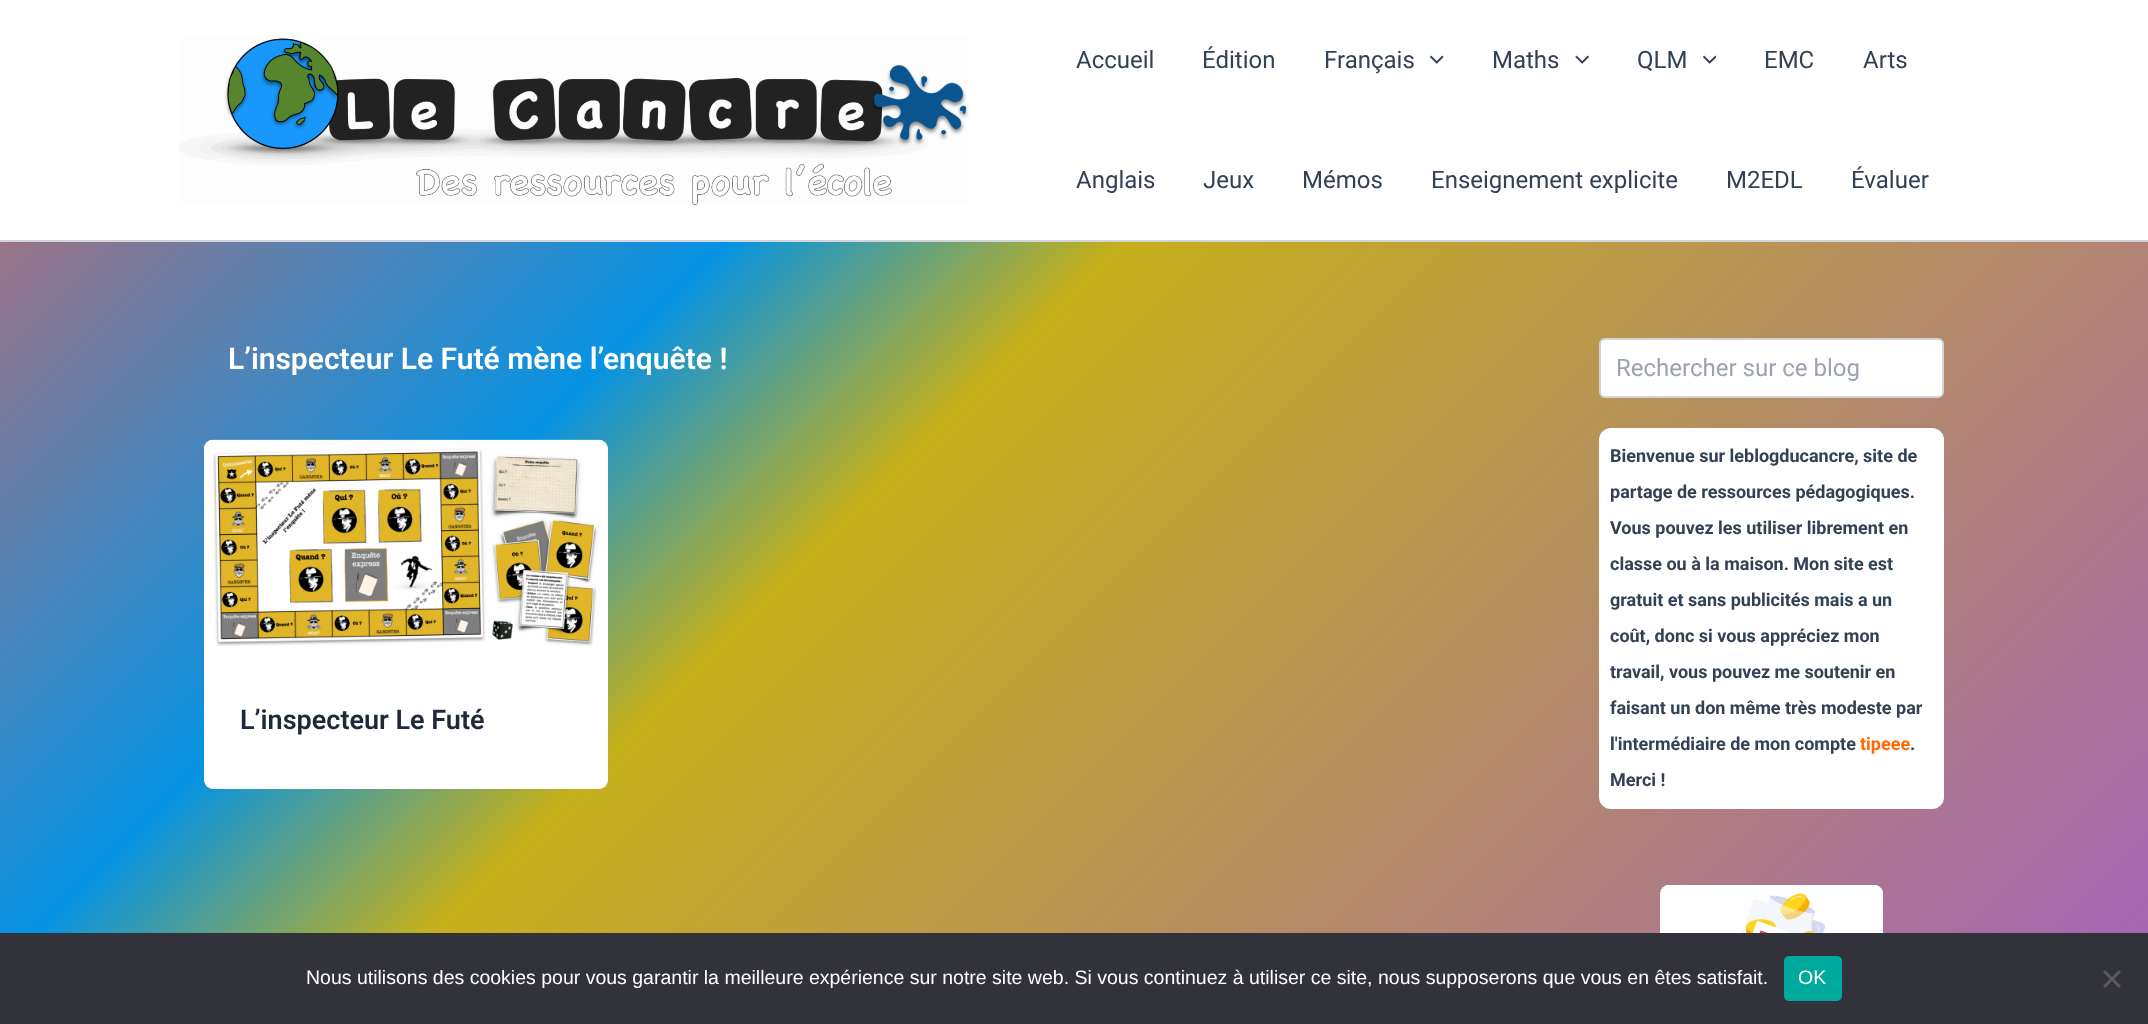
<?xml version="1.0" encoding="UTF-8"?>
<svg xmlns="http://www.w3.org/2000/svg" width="2148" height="1024">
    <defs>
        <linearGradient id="g1" gradientUnits="userSpaceOnUse" x1="177" y1="-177" x2="1971" y2="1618"><stop offset="0" stop-color="#CD6969"/><stop offset="0.27" stop-color="#0693E3"/><stop offset="0.38" stop-color="#C4B01A"/><stop offset="1" stop-color="#9B51E0"/></linearGradient>
    </defs>
    <rect width="100%" height="100%" fill="#FFFFFF"/>
    <rect x="0" y="242" width="2148" height="691" fill="url(#g1)"/>
    <rect x="0" y="240" width="2148" height="2" fill="#D1D5DB"/>
    <image x="178" y="38" width="791" height="168" href="img_01.png"/>
    <text x="1076" y="68" font-family="Roboto" font-size="24" fill="#334155">Accueil</text>
    <text x="1202" y="68" font-family="Roboto" font-size="24" fill="#334155">Édition</text>
    <text x="1324" y="68" font-family="Roboto" font-size="24" fill="#334155">Français</text>
    <image x="1430" y="55" width="14" height="9" href="img_02.png"/>
    <text x="1492" y="68" font-family="Roboto" font-size="24" fill="#334155">Maths</text>
    <image x="1575" y="55" width="14" height="9" href="img_03.png"/>
    <text x="1637" y="68" font-family="Roboto" font-size="24" fill="#334155">QLM</text>
    <image x="1703" y="55" width="13" height="9" href="img_04.png"/>
    <text x="1764" y="68" font-family="Roboto" font-size="24" fill="#334155">EMC</text>
    <text x="1863" y="68" font-family="Roboto" font-size="24" fill="#334155">Arts</text>
    <text x="1076" y="188" font-family="Roboto" font-size="24" fill="#334155">Anglais</text>
    <text x="1203" y="188" font-family="Roboto" font-size="24" fill="#334155">Jeux</text>
    <text x="1302" y="188" font-family="Roboto" font-size="24" fill="#334155">Mémos</text>
    <text x="1431" y="188" font-family="Roboto" font-size="24" fill="#334155">Enseignement explicite</text>
    <text x="1726" y="188" font-family="Roboto" font-size="24" fill="#334155">M2EDL</text>
    <text x="1851" y="188" font-family="Roboto" font-size="24" fill="#334155">Évaluer</text>
    <text x="228" y="369" font-family="Roboto" font-size="30" font-weight="600" fill="#FFFFFF">L’inspecteur Le Futé mène l’enquête !</text>
    <rect x="204" y="440" width="404" height="349" rx="9" fill="#FFFFFF"/>
    <image x="204" y="439" width="403" height="207" href="img_05.png"/>
    <text x="240" y="729" font-family="Roboto" font-size="27" font-weight="600" fill="#1E293B">L’inspecteur Le Futé</text>
    <rect x="1600" y="339" width="343" height="58" rx="5" fill="#FFFFFF" stroke="#D1D5DB" stroke-width="2"/>
    <text x="1616" y="376" font-family="Roboto" font-size="24" fill="#9CA3AF">Rechercher sur ce blog</text>
    <rect x="1599" y="428" width="345" height="381" rx="12" fill="#FFFFFF"/>
    <text x="1610" y="462" font-family="Roboto" font-size="18" font-weight="700" fill="#334155">Bienvenue sur leblogducancre, site de</text>
    <text x="1610" y="498" font-family="Roboto" font-size="18" font-weight="700" fill="#334155">partage de ressources pédagogiques.</text>
    <text x="1610" y="534" font-family="Roboto" font-size="18" font-weight="700" fill="#334155">Vous pouvez les utiliser librement en</text>
    <text x="1610" y="570" font-family="Roboto" font-size="18" font-weight="700" fill="#334155">classe ou à la maison. Mon site est</text>
    <text x="1610" y="606" font-family="Roboto" font-size="18" font-weight="700" fill="#334155">gratuit et sans publicités mais a un</text>
    <text x="1610" y="642" font-family="Roboto" font-size="18" font-weight="700" fill="#334155">coût, donc si vous appréciez mon</text>
    <text x="1610" y="678" font-family="Roboto" font-size="18" font-weight="700" fill="#334155">travail, vous pouvez me soutenir en</text>
    <text x="1610" y="714" font-family="Roboto" font-size="18" font-weight="700" fill="#334155">faisant un don même très modeste par</text>
    <text x="1610" y="750" font-family="Roboto" font-size="18" font-weight="700" fill="#334155">l'intermédiaire de mon compte</text>
    <text x="1860" y="750" font-family="Roboto" font-size="18" font-weight="700" fill="#FF6900">tipeee</text>
    <text x="1910" y="750" font-family="Roboto" font-size="18" font-weight="700" fill="#334155">.</text>
    <text x="1610" y="786" font-family="Roboto" font-size="18" font-weight="700" fill="#334155">Merci !</text>
    <image x="1660" y="885" width="223" height="48" href="img_06.png"/>
    <rect x="0" y="933" width="2148" height="91" fill="#32323A"/>
    <text x="306" y="984" font-family="Liberation Sans" font-size="19.5" fill="#FFFFFF">Nous utilisons des cookies pour vous garantir la meilleure expérience sur notre site web. Si vous continuez à utiliser ce site, nous supposerons que vous en êtes satisfait.</text>
    <rect x="1784" y="956" width="58" height="45" rx="5" fill="#00A99D"/>
    <text x="1798" y="984" font-family="Liberation Sans" font-size="19.5" fill="#FFFFFF">OK</text>
    <path d="M 2119 970 L 2121 972 L 2105 988 L 2103 986 Z" fill="#59595D"/>
    <path d="M 2103 972 L 2105 970 L 2121 986 L 2119 988 Z" fill="#59595D"/>
</svg>
